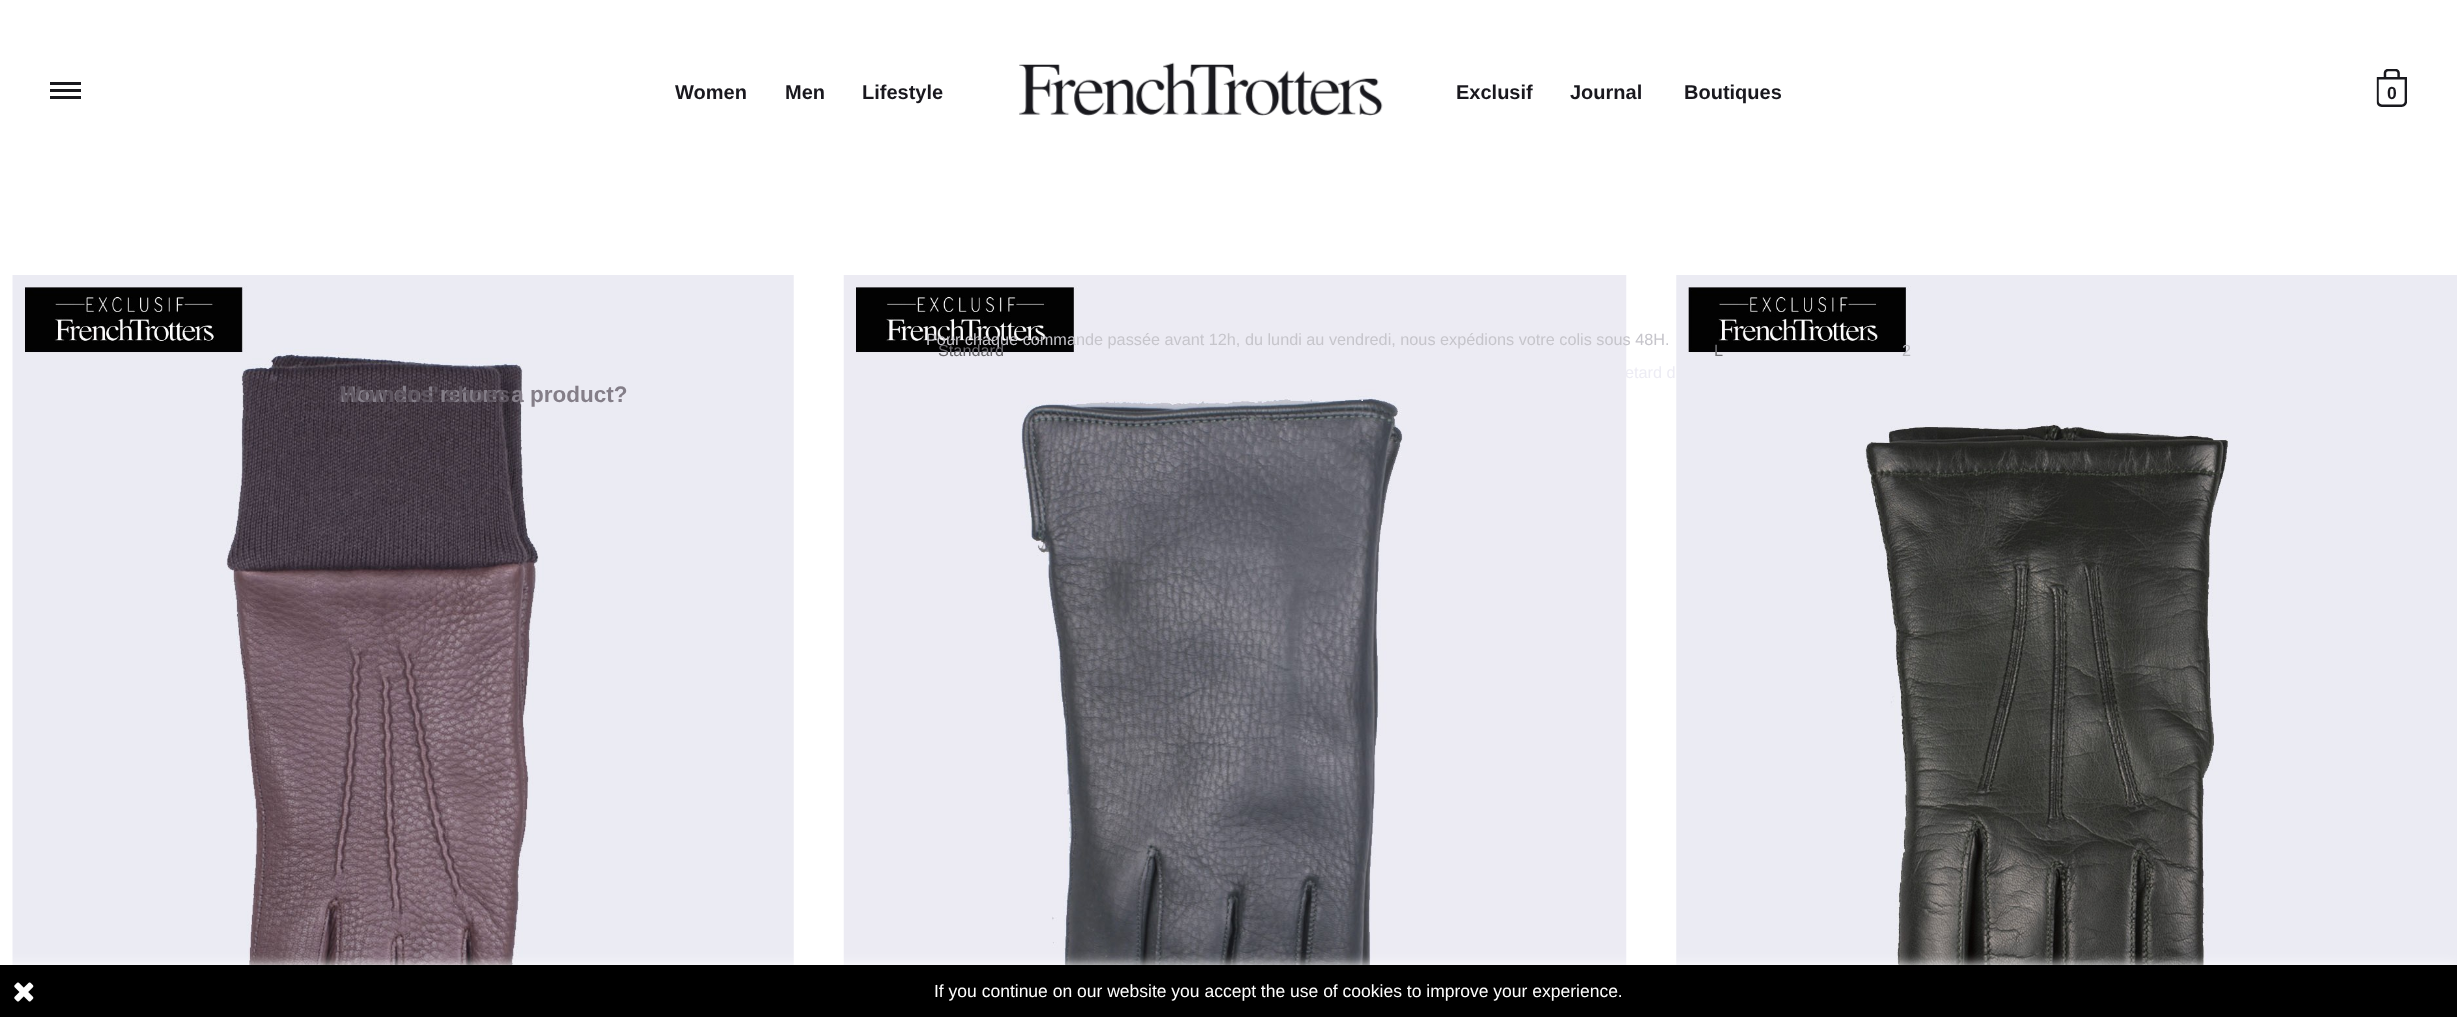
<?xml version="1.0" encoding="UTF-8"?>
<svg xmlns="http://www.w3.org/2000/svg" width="2457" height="1017">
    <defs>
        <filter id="blur1" x="-50%" y="-200%" width="200%" height="500%"><feGaussianBlur stdDeviation="6"/></filter>
    </defs>
    <rect width="100%" height="100%" fill="#FFFFFF"/>
    <rect x="50" y="96" width="31" height="3" fill="#19191E"/>
    <rect x="50" y="89" width="31" height="3" fill="#19191E"/>
    <rect x="50" y="82" width="31" height="3" fill="#19191E"/>
    <text x="675" y="99" font-family="Liberation Sans" font-size="20" font-weight="700" fill="#19181E">Women</text>
    <text x="785" y="99" font-family="Liberation Sans" font-size="20" font-weight="700" fill="#19181E">Men</text>
    <text x="862" y="99" font-family="Liberation Sans" font-size="20" font-weight="700" fill="#19181E">Lifestyle</text>
    <image x="1019" y="62" width="364" height="54" href="img_01.png"/>
    <text x="1456" y="99" font-family="Liberation Sans" font-size="20" font-weight="700" fill="#19181E">Exclusif</text>
    <text x="1570" y="99" font-family="Liberation Sans" font-size="20" font-weight="700" fill="#19181E">Journal</text>
    <text x="1684" y="99" font-family="Liberation Sans" font-size="20" font-weight="700" fill="#19181E">Boutiques</text>
    <image x="2376" y="69" width="31" height="38" href="img_02.png"/>
    <text x="2387" y="99" font-family="Liberation Sans" font-size="17.5" font-weight="700" fill="#19181E">0</text>
    <image x="12" y="275" width="782" height="690" href="img_03.png"/>
    <image x="843" y="275" width="784" height="690" href="img_04.png"/>
    <image x="1676" y="275" width="781" height="690" href="img_05.png"/>
    <text x="340" y="402" font-family="Liberation Sans" font-size="22.5" font-weight="700" fill="#847E88">How do I return a product?</text>
    <text x="926" y="345" font-family="Liberation Sans" font-size="16.25" fill="#C6C5CB">Pour chaque commande passée avant 12h, du lundi au vendredi, nous expédions votre colis sous 48H.</text>
    <text x="1625" y="378" font-family="Liberation Sans" font-size="16.25" fill="#EDECF4">etard d</text>
    <text x="1360" y="401" font-family="Liberation Sans" font-size="16.25" fill="#EDECF4">.</text>
    <text x="1902" y="356" font-family="Liberation Sans" font-size="16.25" fill="#B7B7BD">2</text>
    <text x="340" y="402" font-family="Liberation Sans" font-size="22.5" font-weight="700" fill="#5F5761">Womens' shoes</text>
    <text x="938" y="356" font-family="Liberation Sans" font-size="16.25" fill="#69686C">Standard</text>
    <text x="1714" y="356" font-family="Liberation Sans" font-size="16.25" fill="#717175">L</text>
    <rect x="0" y="965" width="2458" height="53" fill="#FFFFFF" filter="url(#blur1)"/>
    <rect x="0" y="965" width="2457" height="52" fill="#000000"/>
    <image x="14" y="982" width="20" height="20" href="img_06.png"/>
    <text x="934" y="997" font-family="Liberation Sans" font-size="17.5" fill="#FFFFFF">If you continue on our website you accept the use of cookies to improve your experience.</text>
</svg>
